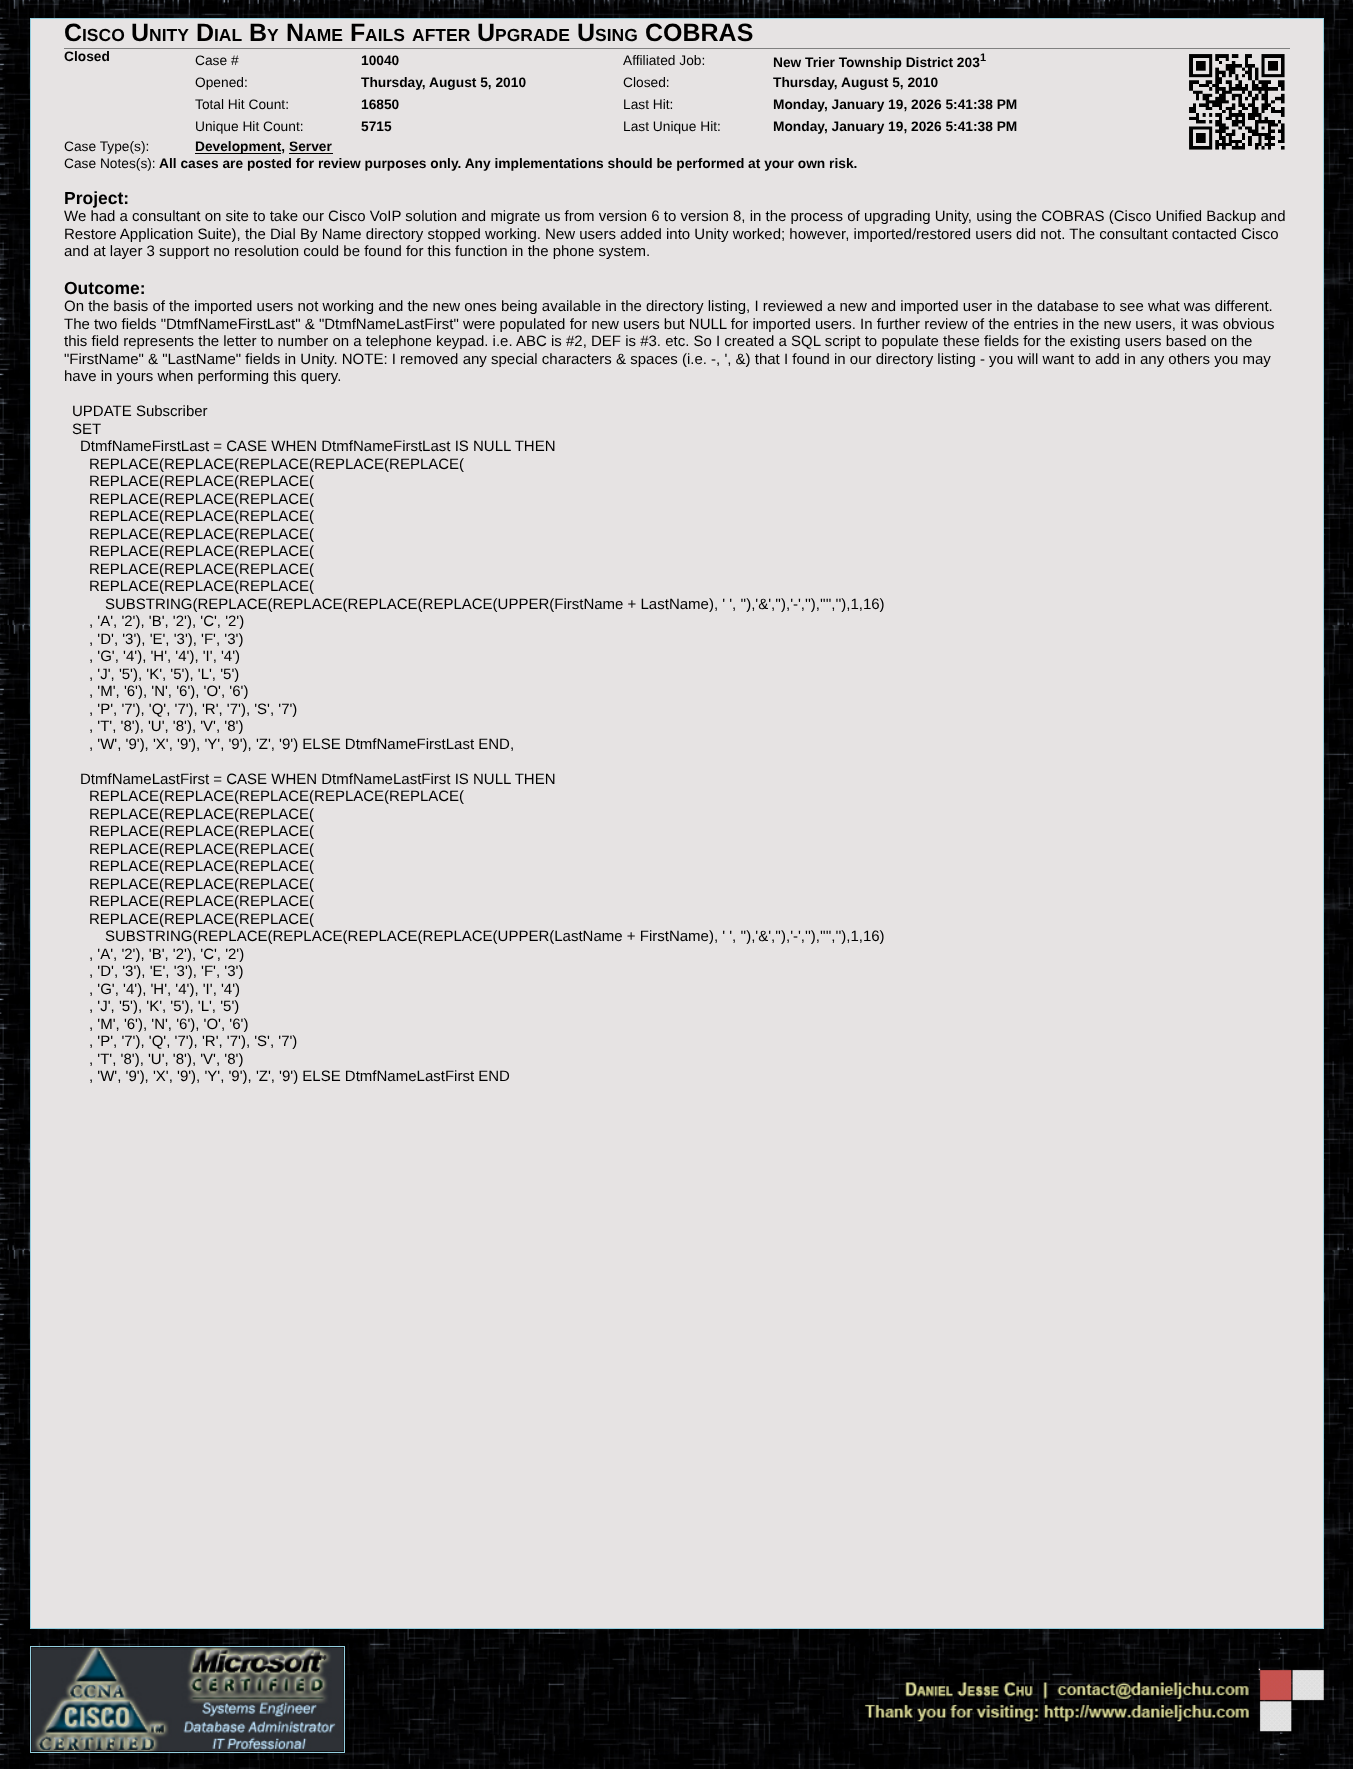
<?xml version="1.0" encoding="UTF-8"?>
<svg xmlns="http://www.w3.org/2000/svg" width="1353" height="1769">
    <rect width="100%" height="100%" fill="#FFFFFF"/>
    <image x="0" y="0" width="1353" height="1769" href="img_01.png"/>
    <rect x="30.5" y="18.5" width="1293" height="1610" fill="#E6E3E3" stroke="#94CEDE"/>
    <rect x="64" y="48" width="1226" height="1" fill="#808080"/>
    <text x="64" y="41" font-family="Liberation Sans" font-size="25" font-weight="700" fill="#000000">C</text>
    <text x="82" y="41" font-family="Liberation Sans" font-size="17.5" font-weight="700" fill="#000000">ISCO</text>
    <text x="131" y="41" font-family="Liberation Sans" font-size="25" font-weight="700" fill="#000000">U</text>
    <text x="149" y="41" font-family="Liberation Sans" font-size="17.5" font-weight="700" fill="#000000">NITY</text>
    <text x="196" y="41" font-family="Liberation Sans" font-size="25" font-weight="700" fill="#000000">D</text>
    <text x="214" y="41" font-family="Liberation Sans" font-size="17.5" font-weight="700" fill="#000000">IAL</text>
    <text x="249" y="41" font-family="Liberation Sans" font-size="25" font-weight="700" fill="#000000">B</text>
    <text x="267" y="41" font-family="Liberation Sans" font-size="17.5" font-weight="700" fill="#000000">Y</text>
    <text x="286" y="41" font-family="Liberation Sans" font-size="25" font-weight="700" fill="#000000">N</text>
    <text x="304" y="41" font-family="Liberation Sans" font-size="17.5" font-weight="700" fill="#000000">AME</text>
    <text x="350" y="41" font-family="Liberation Sans" font-size="25" font-weight="700" fill="#000000">F</text>
    <text x="365" y="41" font-family="Liberation Sans" font-size="17.5" font-weight="700" fill="#000000">AILS</text>
    <text x="412" y="41" font-family="Liberation Sans" font-size="17.5" font-weight="700" fill="#000000">AFTER</text>
    <text x="477" y="41" font-family="Liberation Sans" font-size="25" font-weight="700" fill="#000000">U</text>
    <text x="495" y="41" font-family="Liberation Sans" font-size="17.5" font-weight="700" fill="#000000">PGRADE</text>
    <text x="577" y="41" font-family="Liberation Sans" font-size="25" font-weight="700" fill="#000000">U</text>
    <text x="595" y="41" font-family="Liberation Sans" font-size="17.5" font-weight="700" fill="#000000">SING</text>
    <text x="645" y="41" font-family="Liberation Sans" font-size="25" font-weight="700" fill="#000000">COBRAS</text>
    <text x="64" y="61" font-family="Liberation Sans" font-size="13.75" font-weight="700" fill="#000000">Closed</text>
    <text x="195" y="65" font-family="Liberation Sans" font-size="13.75" fill="#000000">Case #</text>
    <text x="361" y="65" font-family="Liberation Sans" font-size="13.75" font-weight="700" fill="#000000">10040</text>
    <text x="623" y="65" font-family="Liberation Sans" font-size="13.75" fill="#000000">Affiliated Job:</text>
    <text x="773" y="67" font-family="Liberation Sans" font-size="13.75" font-weight="700" fill="#000000">New Trier Township District 203</text>
    <text x="980" y="61" font-family="Liberation Sans" font-size="11" font-weight="700" fill="#000000">1</text>
    <image x="1189" y="54" width="96" height="96" href="img_02.png"/>
    <text x="195" y="87" font-family="Liberation Sans" font-size="13.75" fill="#000000">Opened:</text>
    <text x="361" y="87" font-family="Liberation Sans" font-size="13.75" font-weight="700" fill="#000000">Thursday, August 5, 2010</text>
    <text x="623" y="87" font-family="Liberation Sans" font-size="13.75" fill="#000000">Closed:</text>
    <text x="773" y="87" font-family="Liberation Sans" font-size="13.75" font-weight="700" fill="#000000">Thursday, August 5, 2010</text>
    <text x="195" y="109" font-family="Liberation Sans" font-size="13.75" fill="#000000">Total Hit Count:</text>
    <text x="361" y="109" font-family="Liberation Sans" font-size="13.75" font-weight="700" fill="#000000">16850</text>
    <text x="623" y="109" font-family="Liberation Sans" font-size="13.75" fill="#000000">Last Hit:</text>
    <text x="773" y="109" font-family="Liberation Sans" font-size="13.75" font-weight="700" fill="#000000">Monday, January 19, 2026 5:41:38 PM</text>
    <text x="195" y="131" font-family="Liberation Sans" font-size="13.75" fill="#000000">Unique Hit Count:</text>
    <text x="361" y="131" font-family="Liberation Sans" font-size="13.75" font-weight="700" fill="#000000">5715</text>
    <text x="623" y="131" font-family="Liberation Sans" font-size="13.75" fill="#000000">Last Unique Hit:</text>
    <text x="773" y="131" font-family="Liberation Sans" font-size="13.75" font-weight="700" fill="#000000">Monday, January 19, 2026 5:41:38 PM</text>
    <text x="64" y="151" font-family="Liberation Sans" font-size="13.75" fill="#000000">Case Type(s):</text>
    <rect x="195" y="153" width="86" height="1" fill="#000000"/>
    <text x="195" y="151" font-family="Liberation Sans" font-size="13.75" font-weight="700" fill="#000000">Development, Server</text>
    <rect x="289" y="153" width="44" height="1" fill="#000000"/>
    <text x="64" y="168" font-family="Liberation Sans" font-size="13.75" fill="#000000">Case Notes(s):</text>
    <text x="159" y="168" font-family="Liberation Sans" font-size="13.75" font-weight="700" fill="#000000">All cases are posted for review purposes only. Any implementations should be performed at your own risk.</text>
    <text x="64" y="204" font-family="Liberation Sans" font-size="17.5" font-weight="700" fill="#000000">Project:</text>
    <text font-family="Liberation Sans" font-size="15" fill="#000000">
        <tspan x="64" y="221">We had a consultant on site to take our Cisco VoIP solution and migrate us from version 6 to version 8, in the process of upgrading Unity, using the COBRAS (Cisco Unified Backup and</tspan>
        <tspan x="64" y="239">Restore Application Suite), the Dial By Name directory stopped working. New users added into Unity worked; however, imported/restored users did not. The consultant contacted Cisco</tspan>
        <tspan x="64" y="256">and at layer 3 support no resolution could be found for this function in the phone system.</tspan>
    </text>
    <text x="64" y="294" font-family="Liberation Sans" font-size="17.5" font-weight="700" fill="#000000">Outcome:</text>
    <text font-family="Liberation Sans" font-size="15" fill="#000000">
        <tspan x="64" y="311">On the basis of the imported users not working and the new ones being available in the directory listing, I reviewed a new and imported user in the database to see what was different.</tspan>
        <tspan x="64" y="329">The two fields "DtmfNameFirstLast" &amp; "DtmfNameLastFirst" were populated for new users but NULL for imported users. In further review of the entries in the new users, it was obvious</tspan>
        <tspan x="64" y="346">this field represents the letter to number on a telephone keypad. i.e. ABC is #2, DEF is #3. etc. So I created a SQL script to populate these fields for the existing users based on the</tspan>
        <tspan x="64" y="364">"FirstName" &amp; "LastName" fields in Unity. NOTE: I removed any special characters &amp; spaces (i.e. -, ', &amp;) that I found in our directory listing - you will want to add in any others you may</tspan>
        <tspan x="64" y="381">have in yours when performing this query.</tspan>
    </text>
    <text font-family="Liberation Sans" font-size="15" fill="#000000">
        <tspan x="72" y="416">UPDATE Subscriber</tspan>
        <tspan x="72" y="434">SET</tspan>
    </text>
    <text x="80" y="451" font-family="Liberation Sans" font-size="15" fill="#000000">DtmfNameFirstLast = CASE WHEN DtmfNameFirstLast IS NULL THEN</text>
    <text font-family="Liberation Sans" font-size="15" fill="#000000">
        <tspan x="89" y="469">REPLACE(REPLACE(REPLACE(REPLACE(REPLACE(</tspan>
        <tspan x="89" y="486">REPLACE(REPLACE(REPLACE(</tspan>
        <tspan x="89" y="504">REPLACE(REPLACE(REPLACE(</tspan>
        <tspan x="89" y="521">REPLACE(REPLACE(REPLACE(</tspan>
        <tspan x="89" y="539">REPLACE(REPLACE(REPLACE(</tspan>
        <tspan x="89" y="556">REPLACE(REPLACE(REPLACE(</tspan>
        <tspan x="89" y="574">REPLACE(REPLACE(REPLACE(</tspan>
        <tspan x="89" y="591">REPLACE(REPLACE(REPLACE(</tspan>
    </text>
    <text x="105" y="609" font-family="Liberation Sans" font-size="15" fill="#000000">SUBSTRING(REPLACE(REPLACE(REPLACE(REPLACE(UPPER(FirstName + LastName), ' ', ''),'&amp;',''),'-',''),'''',''),1,16)</text>
    <text font-family="Liberation Sans" font-size="15" fill="#000000">
        <tspan x="89" y="626">, 'A', '2'), 'B', '2'), 'C', '2')</tspan>
        <tspan x="89" y="644">, 'D', '3'), 'E', '3'), 'F', '3')</tspan>
        <tspan x="89" y="661">, 'G', '4'), 'H', '4'), 'I', '4')</tspan>
        <tspan x="89" y="679">, 'J', '5'), 'K', '5'), 'L', '5')</tspan>
        <tspan x="89" y="696">, 'M', '6'), 'N', '6'), 'O', '6')</tspan>
        <tspan x="89" y="714">, 'P', '7'), 'Q', '7'), 'R', '7'), 'S', '7')</tspan>
        <tspan x="89" y="731">, 'T', '8'), 'U', '8'), 'V', '8')</tspan>
        <tspan x="89" y="749">, 'W', '9'), 'X', '9'), 'Y', '9'), 'Z', '9') ELSE DtmfNameFirstLast END,</tspan>
    </text>
    <text x="80" y="784" font-family="Liberation Sans" font-size="15" fill="#000000">DtmfNameLastFirst = CASE WHEN DtmfNameLastFirst IS NULL THEN</text>
    <text font-family="Liberation Sans" font-size="15" fill="#000000">
        <tspan x="89" y="801">REPLACE(REPLACE(REPLACE(REPLACE(REPLACE(</tspan>
        <tspan x="89" y="819">REPLACE(REPLACE(REPLACE(</tspan>
        <tspan x="89" y="836">REPLACE(REPLACE(REPLACE(</tspan>
        <tspan x="89" y="854">REPLACE(REPLACE(REPLACE(</tspan>
        <tspan x="89" y="871">REPLACE(REPLACE(REPLACE(</tspan>
        <tspan x="89" y="889">REPLACE(REPLACE(REPLACE(</tspan>
        <tspan x="89" y="906">REPLACE(REPLACE(REPLACE(</tspan>
        <tspan x="89" y="924">REPLACE(REPLACE(REPLACE(</tspan>
    </text>
    <text x="105" y="941" font-family="Liberation Sans" font-size="15" fill="#000000">SUBSTRING(REPLACE(REPLACE(REPLACE(REPLACE(UPPER(LastName + FirstName), ' ', ''),'&amp;',''),'-',''),'''',''),1,16)</text>
    <text font-family="Liberation Sans" font-size="15" fill="#000000">
        <tspan x="89" y="959">, 'A', '2'), 'B', '2'), 'C', '2')</tspan>
        <tspan x="89" y="976">, 'D', '3'), 'E', '3'), 'F', '3')</tspan>
        <tspan x="89" y="994">, 'G', '4'), 'H', '4'), 'I', '4')</tspan>
        <tspan x="89" y="1011">, 'J', '5'), 'K', '5'), 'L', '5')</tspan>
        <tspan x="89" y="1029">, 'M', '6'), 'N', '6'), 'O', '6')</tspan>
        <tspan x="89" y="1046">, 'P', '7'), 'Q', '7'), 'R', '7'), 'S', '7')</tspan>
        <tspan x="89" y="1064">, 'T', '8'), 'U', '8'), 'V', '8')</tspan>
        <tspan x="89" y="1081">, 'W', '9'), 'X', '9'), 'Y', '9'), 'Z', '9') ELSE DtmfNameLastFirst END</tspan>
    </text>
    <rect x="30.5" y="1646.5" width="314" height="106" fill="none" stroke="#94CEDE"/>
    <image x="31" y="1647" width="313" height="105" href="img_03.png"/>
    <image x="864" y="1668" width="460" height="64" href="img_04.png"/>
</svg>
